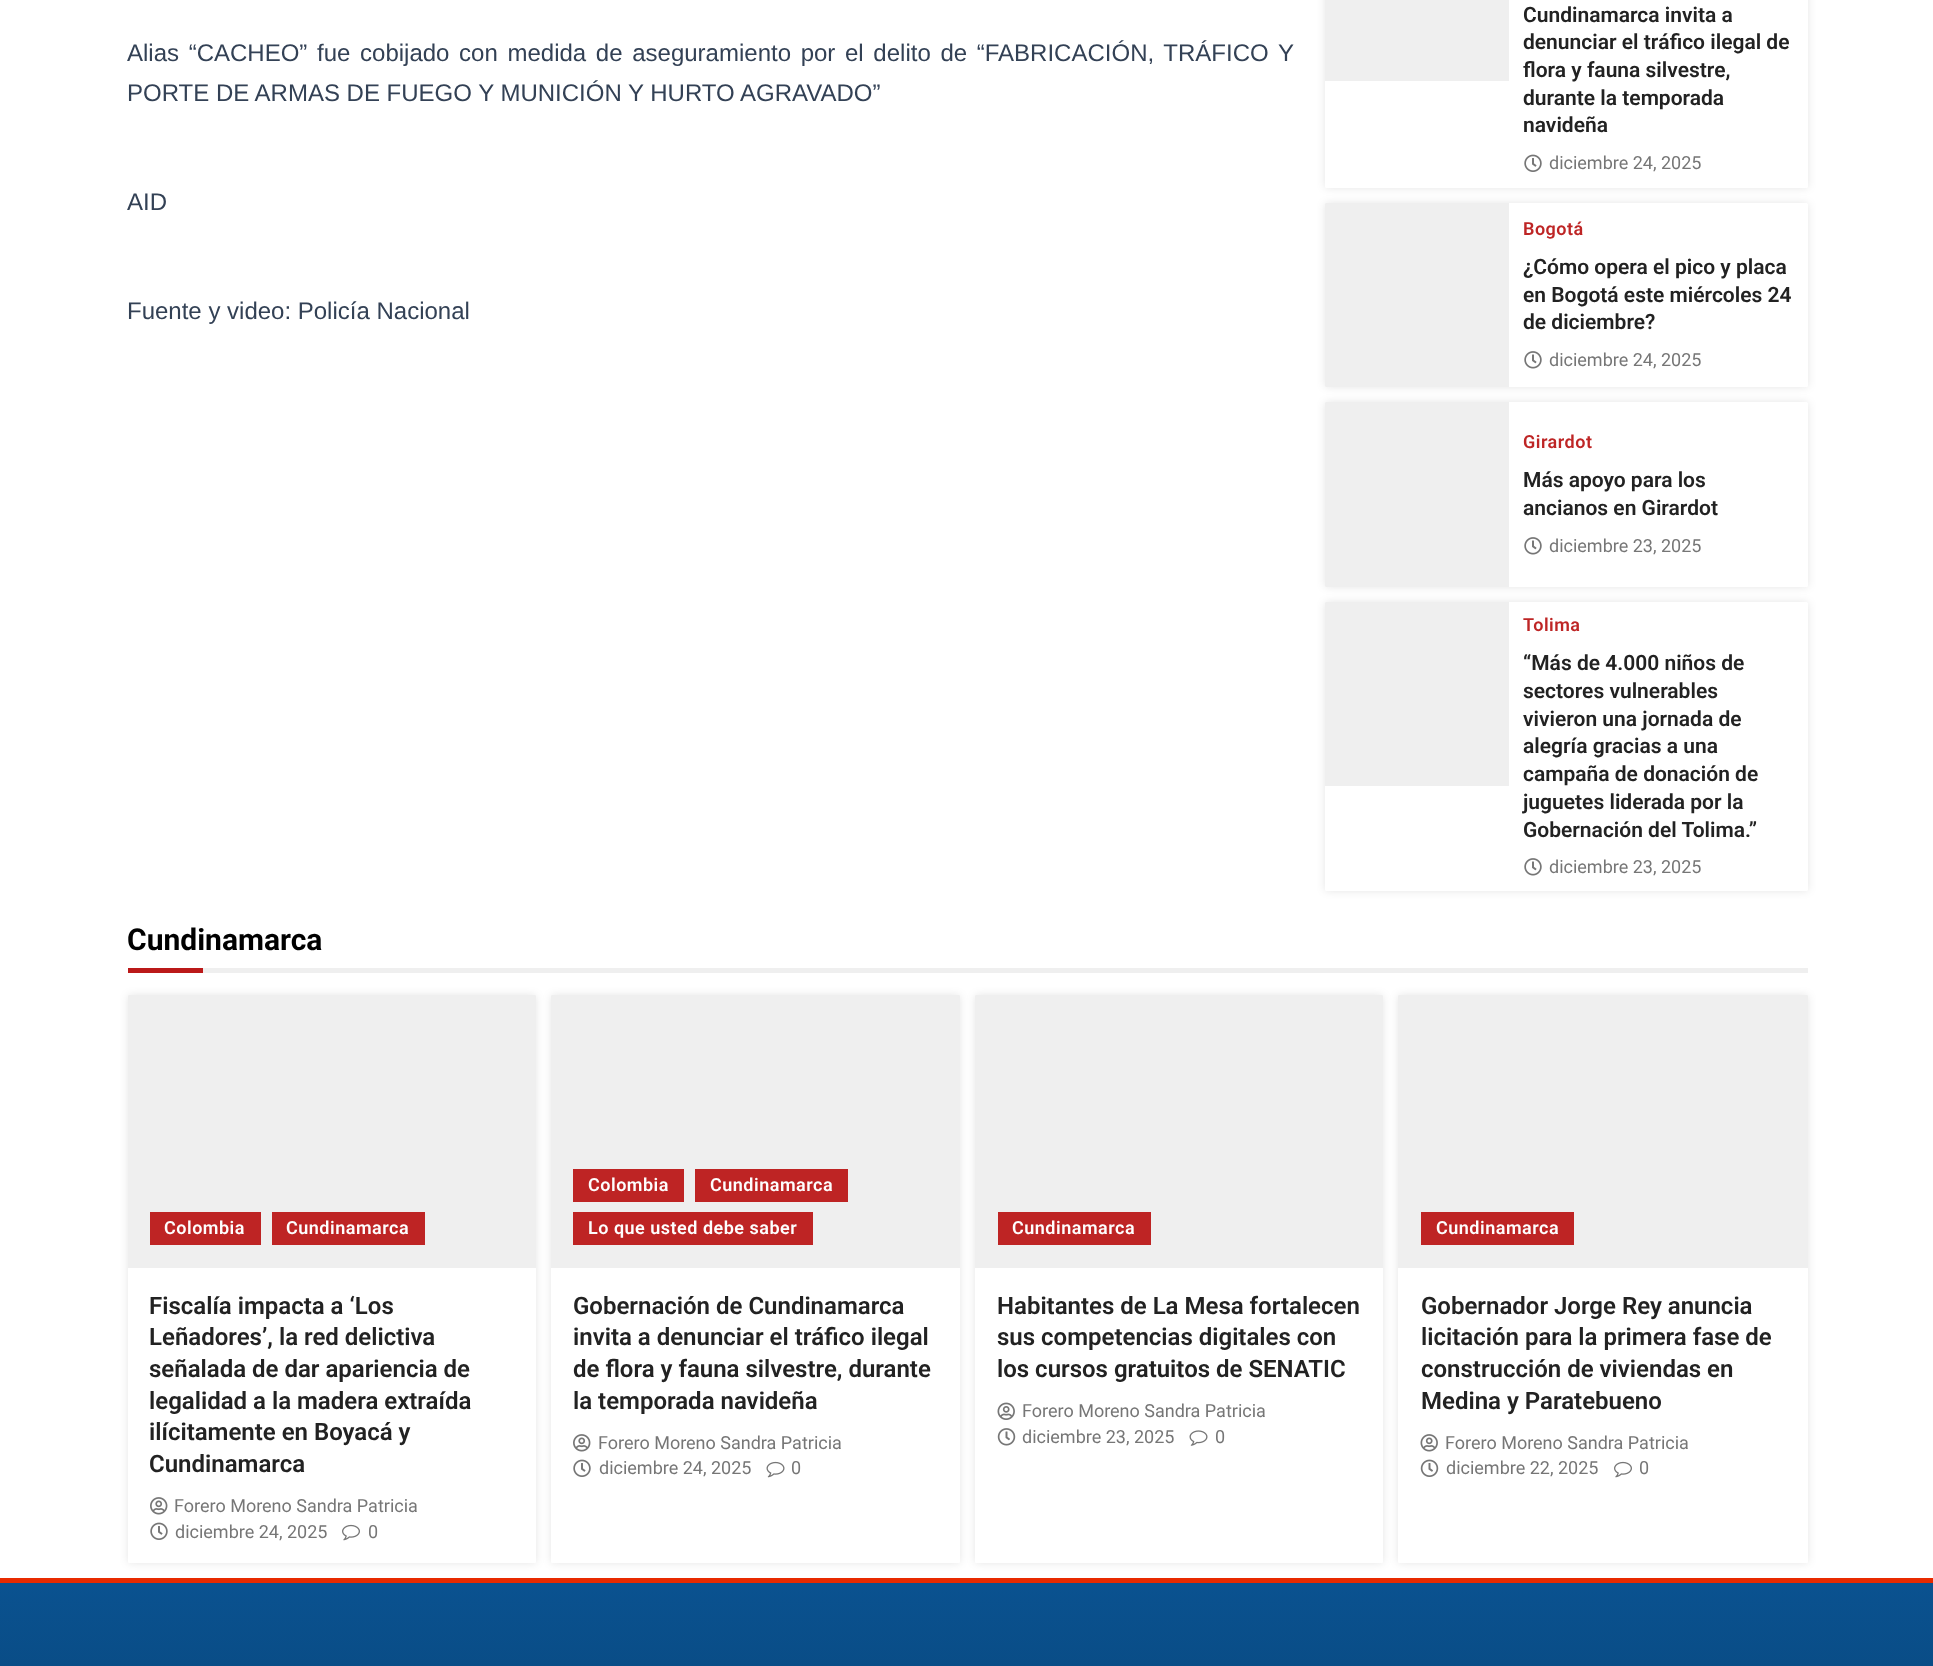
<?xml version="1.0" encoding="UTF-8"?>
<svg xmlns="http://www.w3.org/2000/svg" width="1933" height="1666">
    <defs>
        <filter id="blur1" x="-50%" y="-200%" width="200%" height="500%"><feGaussianBlur stdDeviation="4"/></filter>
        <linearGradient id="g1" gradientUnits="userSpaceOnUse" x1="967" y1="1583" x2="967" y2="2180"><stop offset="0" stop-color="#0A5290"/><stop offset="1" stop-color="#052C4E"/></linearGradient>
    </defs>
    <rect width="100%" height="100%" fill="#FFFFFF"/>
    <text font-family="Liberation Sans" font-size="24" fill="#334155">
        <tspan x="127" y="61" word-spacing="3">Alias “CACHEO” fue cobijado con medida de aseguramiento por el delito de “FABRICACIÓN, TRÁFICO Y</tspan>
        <tspan x="127" y="101">PORTE DE ARMAS DE FUEGO Y MUNICIÓN Y HURTO AGRAVADO”</tspan>
    </text>
    <text x="127" y="210" font-family="Liberation Sans" font-size="24" fill="#334155">AID</text>
    <text x="127" y="319" font-family="Liberation Sans" font-size="24" fill="#334155">Fuente y video: Policía Nacional</text>
    <rect x="1325" y="-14" width="483" height="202" rx="1.5" fill="#000000" fill-opacity="0.1" filter="url(#blur1)"/>
    <rect x="1325" y="-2" width="483" height="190" rx="1.5" fill="#FFFFFF"/>
    <rect x="1325" y="0" width="184" height="81" fill="#EFEFEF"/>
    <text font-family="Roboto" font-size="21" font-weight="600" fill="#222222">
        <tspan x="1523" y="22">Cundinamarca invita a</tspan>
        <tspan x="1523" y="49">denunciar el tráfico ilegal de</tspan>
        <tspan x="1523" y="77">flora y fauna silvestre,</tspan>
        <tspan x="1523" y="105">durante la temporada</tspan>
        <tspan x="1523" y="132">navideña</tspan>
    </text>
    <image x="1524" y="154" width="18" height="18" href="img_01.png"/>
    <text x="1549" y="169" font-family="Roboto" font-size="18" fill="#767676">diciembre 24, 2025</text>
    <rect x="1325" y="203" width="483" height="184" rx="1.5" fill="#000000" fill-opacity="0.1" filter="url(#blur1)"/>
    <rect x="1325" y="203" width="483" height="184" rx="1.5" fill="#FFFFFF"/>
    <path d="M 1326.5 203 H 1509 V 387 H 1326.5 C 1325.5 387 1325 386.5 1325 385.5 V 204.5 C 1325 203.5 1325.5 203 1326.5 203 Z" fill="#EFEFEF"/>
    <text x="1523" y="235" font-family="Roboto" font-size="18" font-weight="600" letter-spacing="0.5" fill="#BE2525">Bogotá</text>
    <text font-family="Roboto" font-size="21" font-weight="600" fill="#222222">
        <tspan x="1523" y="274">¿Cómo opera el pico y placa</tspan>
        <tspan x="1523" y="302">en Bogotá este miércoles 24</tspan>
        <tspan x="1523" y="329">de diciembre?</tspan>
    </text>
    <image x="1524" y="351" width="18" height="18" href="img_02.png"/>
    <text x="1549" y="366" font-family="Roboto" font-size="18" fill="#767676">diciembre 24, 2025</text>
    <rect x="1325" y="402" width="483" height="185" rx="1.5" fill="#000000" fill-opacity="0.1" filter="url(#blur1)"/>
    <rect x="1325" y="402" width="483" height="185" rx="1.5" fill="#FFFFFF"/>
    <path d="M 1326.5 402 H 1509 V 587 H 1326.5 C 1325.5 587 1325 586.5 1325 585.5 V 403.5 C 1325 402.5 1325.5 402 1326.5 402 Z" fill="#EFEFEF"/>
    <text x="1523" y="448" font-family="Roboto" font-size="18" font-weight="600" letter-spacing="0.5" fill="#BE2525">Girardot</text>
    <text font-family="Roboto" font-size="21" font-weight="600" fill="#222222">
        <tspan x="1523" y="487">Más apoyo para los</tspan>
        <tspan x="1523" y="515">ancianos en Girardot</tspan>
    </text>
    <image x="1524" y="537" width="18" height="18" href="img_02.png"/>
    <text x="1549" y="552" font-family="Roboto" font-size="18" fill="#767676">diciembre 23, 2025</text>
    <rect x="1325" y="602" width="483" height="289" rx="1.5" fill="#000000" fill-opacity="0.1" filter="url(#blur1)"/>
    <rect x="1325" y="602" width="483" height="289" rx="1.5" fill="#FFFFFF"/>
    <path d="M 1326.5 602 H 1509 V 786 H 1325 V 603.5 C 1325 602.5 1325.5 602 1326.5 602 Z" fill="#EFEFEF"/>
    <text x="1523" y="631" font-family="Roboto" font-size="18" font-weight="600" letter-spacing="0.5" fill="#BE2525">Tolima</text>
    <text font-family="Roboto" font-size="21" font-weight="600" fill="#222222">
        <tspan x="1523" y="670">“Más de 4.000 niños de</tspan>
        <tspan x="1523" y="698">sectores vulnerables</tspan>
        <tspan x="1523" y="726">vivieron una jornada de</tspan>
        <tspan x="1523" y="753">alegría gracias a una</tspan>
        <tspan x="1523" y="781">campaña de donación de</tspan>
        <tspan x="1523" y="809">juguetes liderada por la</tspan>
        <tspan x="1523" y="837">Gobernación del Tolima.”</tspan>
    </text>
    <image x="1524" y="858" width="18" height="18" href="img_02.png"/>
    <text x="1549" y="873" font-family="Roboto" font-size="18" fill="#767676">diciembre 23, 2025</text>
    <text x="127" y="950" font-family="Roboto" font-size="30" font-weight="700" fill="#000000">Cundinamarca</text>
    <rect x="128" y="968" width="75" height="5" fill="#BB1919"/>
    <rect x="203" y="968" width="1605" height="5" fill="#EFEFEF"/>
    <rect x="128" y="995" width="408" height="568" rx="1.5" fill="#000000" fill-opacity="0.1" filter="url(#blur1)"/>
    <path d="M 129.5 995 H 534.5 C 535.5 995 536 995.5 536 996.5 V 1268 H 128 V 996.5 C 128 995.5 128.5 995 129.5 995 Z" fill="#EFEFEF"/>
    <rect x="150" y="1212" width="111" height="33" fill="#BE2424"/>
    <text x="164" y="1234" font-family="Roboto" font-size="18" font-weight="600" letter-spacing="0.5" fill="#FEFEFE">Colombia</text>
    <rect x="272" y="1212" width="153" height="33" fill="#BE2424"/>
    <text x="286" y="1234" font-family="Roboto" font-size="18" font-weight="600" letter-spacing="0.5" fill="#FEFEFE">Cundinamarca</text>
    <path d="M 128 1268 H 536 V 1561.5 C 536 1562.5 535.5 1563 534.5 1563 H 129.5 C 128.5 1563 128 1562.5 128 1561.5 Z" fill="#FFFFFF"/>
    <text font-family="Roboto" font-size="24" font-weight="600" fill="#222222">
        <tspan x="149" y="1314">Fiscalía impacta a ‘Los</tspan>
        <tspan x="149" y="1345">Leñadores’, la red delictiva</tspan>
        <tspan x="149" y="1377">señalada de dar apariencia de</tspan>
        <tspan x="149" y="1409">legalidad a la madera extraída</tspan>
        <tspan x="149" y="1440">ilícitamente en Boyacá y</tspan>
        <tspan x="149" y="1472">Cundinamarca</tspan>
    </text>
    <image x="150" y="1497" width="18" height="18" href="img_03.png"/>
    <text x="174" y="1512" font-family="Roboto" font-size="18" fill="#767676">Forero Moreno Sandra Patricia</text>
    <image x="150" y="1522" width="18" height="18" href="img_01.png"/>
    <text x="175" y="1538" font-family="Roboto" font-size="18" fill="#767676">diciembre 24, 2025</text>
    <image x="342" y="1524" width="18" height="17" href="img_04.png"/>
    <text x="368" y="1538" font-family="Roboto" font-size="18" fill="#767676">0</text>
    <rect x="551" y="995" width="409" height="568" rx="1.5" fill="#000000" fill-opacity="0.1" filter="url(#blur1)"/>
    <path d="M 552.5 995 H 958.5 C 959.5 995 960 995.5 960 996.5 V 1268 H 551 V 996.5 C 551 995.5 551.5 995 552.5 995 Z" fill="#EFEFEF"/>
    <rect x="573" y="1169" width="111" height="33" fill="#BE2424"/>
    <text x="588" y="1191" font-family="Roboto" font-size="18" font-weight="600" letter-spacing="0.5" fill="#FEFEFE">Colombia</text>
    <rect x="695" y="1169" width="153" height="33" fill="#BE2424"/>
    <text x="710" y="1191" font-family="Roboto" font-size="18" font-weight="600" letter-spacing="0.5" fill="#FEFEFE">Cundinamarca</text>
    <rect x="573" y="1212" width="240" height="33" fill="#BE2424"/>
    <text x="588" y="1234" font-family="Roboto" font-size="18" font-weight="600" letter-spacing="0.5" fill="#FEFEFE">Lo que usted debe saber</text>
    <path d="M 551 1268 H 960 V 1561.5 C 960 1562.5 959.5 1563 958.5 1563 H 552.5 C 551.5 1563 551 1562.5 551 1561.5 Z" fill="#FFFFFF"/>
    <text font-family="Roboto" font-size="24" font-weight="600" fill="#222222">
        <tspan x="573" y="1314">Gobernación de Cundinamarca</tspan>
        <tspan x="573" y="1345">invita a denunciar el tráfico ilegal</tspan>
        <tspan x="573" y="1377">de flora y fauna silvestre, durante</tspan>
        <tspan x="573" y="1409">la temporada navideña</tspan>
    </text>
    <image x="573" y="1434" width="18" height="18" href="img_03.png"/>
    <text x="598" y="1449" font-family="Roboto" font-size="18" fill="#767676">Forero Moreno Sandra Patricia</text>
    <image x="573" y="1459" width="18" height="18" href="img_01.png"/>
    <text x="599" y="1474" font-family="Roboto" font-size="18" fill="#767676">diciembre 24, 2025</text>
    <image x="766" y="1461" width="19" height="17" href="img_05.png"/>
    <text x="791" y="1474" font-family="Roboto" font-size="18" fill="#767676">0</text>
    <rect x="975" y="995" width="408" height="568" rx="1.5" fill="#000000" fill-opacity="0.1" filter="url(#blur1)"/>
    <path d="M 976.5 995 H 1381.5 C 1382.5 995 1383 995.5 1383 996.5 V 1268 H 975 V 996.5 C 975 995.5 975.5 995 976.5 995 Z" fill="#EFEFEF"/>
    <rect x="998" y="1212" width="153" height="33" fill="#BE2424"/>
    <text x="1012" y="1234" font-family="Roboto" font-size="18" font-weight="600" letter-spacing="0.5" fill="#FEFEFE">Cundinamarca</text>
    <path d="M 975 1268 H 1383 V 1561.5 C 1383 1562.5 1382.5 1563 1381.5 1563 H 976.5 C 975.5 1563 975 1562.5 975 1561.5 Z" fill="#FFFFFF"/>
    <text font-family="Roboto" font-size="24" font-weight="600" fill="#222222">
        <tspan x="997" y="1314">Habitantes de La Mesa fortalecen</tspan>
        <tspan x="997" y="1345">sus competencias digitales con</tspan>
        <tspan x="997" y="1377">los cursos gratuitos de SENATIC</tspan>
    </text>
    <image x="997" y="1402" width="18" height="18" href="img_06.png"/>
    <text x="1022" y="1417" font-family="Roboto" font-size="18" fill="#767676">Forero Moreno Sandra Patricia</text>
    <image x="997" y="1428" width="19" height="18" href="img_07.png"/>
    <text x="1022" y="1443" font-family="Roboto" font-size="18" fill="#767676">diciembre 23, 2025</text>
    <image x="1189" y="1430" width="19" height="16" href="img_08.png"/>
    <text x="1215" y="1443" font-family="Roboto" font-size="18" fill="#767676">0</text>
    <rect x="1398" y="995" width="410" height="568" rx="1.5" fill="#000000" fill-opacity="0.1" filter="url(#blur1)"/>
    <path d="M 1399.5 995 H 1806.5 C 1807.5 995 1808 995.5 1808 996.5 V 1268 H 1398 V 996.5 C 1398 995.5 1398.5 995 1399.5 995 Z" fill="#EFEFEF"/>
    <rect x="1421" y="1212" width="153" height="33" fill="#BE2424"/>
    <text x="1436" y="1234" font-family="Roboto" font-size="18" font-weight="600" letter-spacing="0.5" fill="#FEFEFE">Cundinamarca</text>
    <path d="M 1398 1268 H 1808 V 1561.5 C 1808 1562.5 1807.5 1563 1806.5 1563 H 1399.5 C 1398.5 1563 1398 1562.5 1398 1561.5 Z" fill="#FFFFFF"/>
    <text font-family="Roboto" font-size="24" font-weight="600" fill="#222222">
        <tspan x="1421" y="1314">Gobernador Jorge Rey anuncia</tspan>
        <tspan x="1421" y="1345">licitación para la primera fase de</tspan>
        <tspan x="1421" y="1377">construcción de viviendas en</tspan>
        <tspan x="1421" y="1409">Medina y Paratebueno</tspan>
    </text>
    <image x="1420" y="1434" width="18" height="18" href="img_09.png"/>
    <text x="1445" y="1449" font-family="Roboto" font-size="18" fill="#767676">Forero Moreno Sandra Patricia</text>
    <image x="1420" y="1459" width="19" height="18" href="img_10.png"/>
    <text x="1446" y="1474" font-family="Roboto" font-size="18" fill="#767676">diciembre 22, 2025</text>
    <image x="1614" y="1461" width="18" height="17" href="img_04.png"/>
    <text x="1639" y="1474" font-family="Roboto" font-size="18" fill="#767676">0</text>
    <rect x="0" y="1583" width="1933" height="83" fill="url(#g1)"/>
    <rect x="0" y="1578" width="1933" height="5" fill="#E82A00"/>
</svg>
